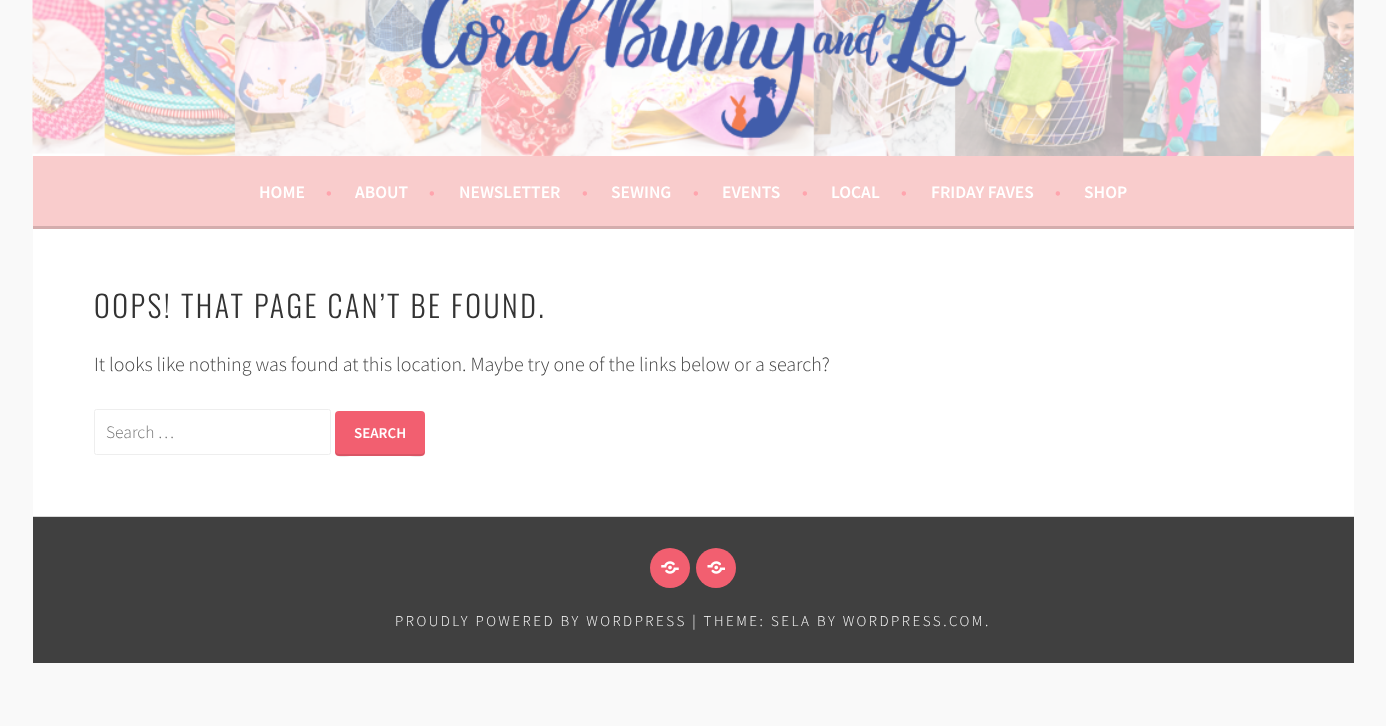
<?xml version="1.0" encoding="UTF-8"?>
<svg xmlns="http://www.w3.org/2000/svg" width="1386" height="726">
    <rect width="100%" height="100%" fill="#F9F9F9"/>
    <image x="32" y="0" width="1322" height="156" href="img_01.png"/>
    <rect x="33" y="156" width="1321" height="70" fill="#F9CCCC"/>
    <rect x="33" y="226" width="1321" height="3" fill="#D4ADAD"/>
    <text x="259" y="198" font-family="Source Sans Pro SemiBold" font-size="17.5" font-weight="600" fill="#FFFFFF">HOME</text>
    <text x="326" y="198" font-family="Source Sans Pro SemiBold" font-size="17.5" font-weight="600" fill="#FFA4AD">•</text>
    <text x="355" y="198" font-family="Source Sans Pro SemiBold" font-size="17.5" font-weight="600" fill="#FFFFFF">ABOUT</text>
    <text x="429" y="198" font-family="Source Sans Pro SemiBold" font-size="17.5" font-weight="600" fill="#FFA4AD">•</text>
    <text x="459" y="198" font-family="Source Sans Pro SemiBold" font-size="17.5" font-weight="600" fill="#FFFFFF">NEWSLETTER</text>
    <text x="582" y="198" font-family="Source Sans Pro SemiBold" font-size="17.5" font-weight="600" fill="#FFA4AD">•</text>
    <text x="611" y="198" font-family="Source Sans Pro SemiBold" font-size="17.5" font-weight="600" fill="#FFFFFF">SEWING</text>
    <text x="693" y="198" font-family="Source Sans Pro SemiBold" font-size="17.5" font-weight="600" fill="#FFA4AD">•</text>
    <text x="722" y="198" font-family="Source Sans Pro SemiBold" font-size="17.5" font-weight="600" fill="#FFFFFF">EVENTS</text>
    <text x="802" y="198" font-family="Source Sans Pro SemiBold" font-size="17.5" font-weight="600" fill="#FFA4AD">•</text>
    <text x="831" y="198" font-family="Source Sans Pro SemiBold" font-size="17.5" font-weight="600" fill="#FFFFFF">LOCAL</text>
    <text x="901" y="198" font-family="Source Sans Pro SemiBold" font-size="17.5" font-weight="600" fill="#FFA4AD">•</text>
    <text x="931" y="198" font-family="Source Sans Pro SemiBold" font-size="17.5" font-weight="600" fill="#FFFFFF">FRIDAY FAVES</text>
    <text x="1055" y="198" font-family="Source Sans Pro SemiBold" font-size="17.5" font-weight="600" fill="#FFA4AD">•</text>
    <text x="1084" y="198" font-family="Source Sans Pro SemiBold" font-size="17.5" font-weight="600" fill="#FFFFFF">SHOP</text>
    <rect x="33" y="229" width="1321" height="287" fill="#FFFFFF"/>
    <text x="94" y="318" font-family="Oswald" font-size="30" font-weight="300" letter-spacing="2.5" fill="#333333">OOPS! THAT PAGE CAN’T BE FOUND.</text>
    <text x="94" y="371" font-family="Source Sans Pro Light" font-size="20" font-weight="300" fill="#404040">It looks like nothing was found at this location. Maybe try one of the links below or a search?</text>
    <rect x="94.5" y="409.5" width="236" height="45" rx="2" fill="none" stroke="#EEEEEE"/>
    <text x="106" y="438" font-family="Source Sans Pro Light" font-size="17.5" font-weight="300" fill="#757575">Search …</text>
    <rect x="335" y="411" width="90" height="45" rx="4" fill="#F25F70"/>
    <path d="M 335 450 C 335 460 345 456 353 456 H 407 C 415 456 425 460 425 450 C 425 452 423 454 421 454 H 339 C 337 454 335 452 335 450 Z" fill="#000000" fill-opacity="0.1"/>
    <text x="354" y="438" font-family="Source Sans Pro SemiBold" font-size="15" font-weight="600" fill="#FFFFFF">SEARCH</text>
    <rect x="33" y="517" width="1321" height="146" fill="#404040"/>
    <rect x="33" y="516" width="1321" height="1" fill="#D9D9D9"/>
    <circle cx="670" cy="568" r="20" fill="#F25F70"/>
    <image x="661" y="561" width="18" height="13" href="img_02.png"/>
    <circle cx="716" cy="568" r="20" fill="#F25F70"/>
    <image x="707" y="561" width="18" height="13" href="img_03.png"/>
    <text x="395" y="626" font-family="Source Sans Pro Light" font-size="15" font-weight="300" letter-spacing="2.5" fill="#FFFFFF">PROUDLY POWERED BY WORDPRESS | THEME: SELA BY WORDPRESS.COM.</text>
</svg>
